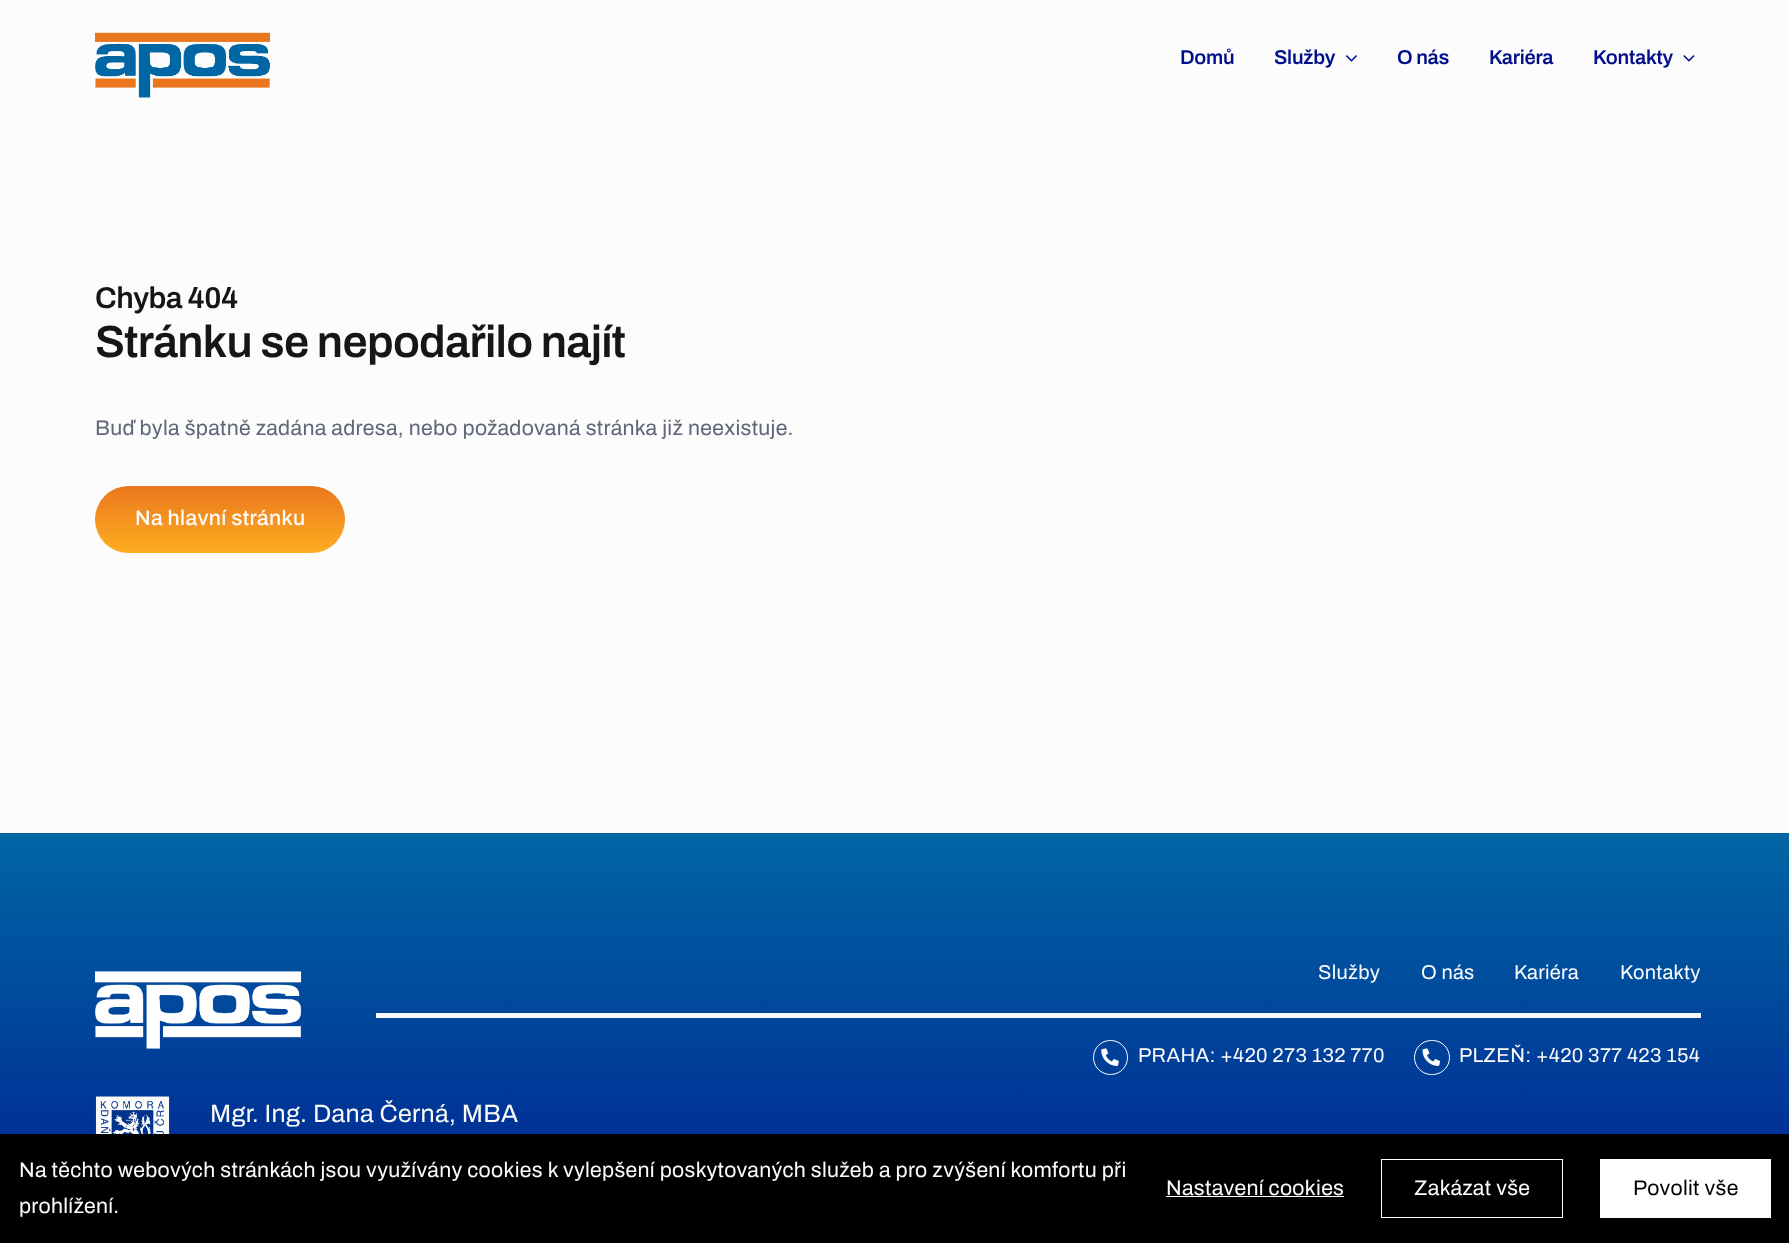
<?xml version="1.0" encoding="UTF-8"?>
<svg xmlns="http://www.w3.org/2000/svg" width="1789" height="1243">
    <defs>
        <linearGradient id="g1" gradientUnits="userSpaceOnUse" x1="220" y1="486" x2="220" y2="553"><stop offset="0" stop-color="#EA771E"/><stop offset="1" stop-color="#FFAD21"/></linearGradient>
        <linearGradient id="g2" gradientUnits="userSpaceOnUse" x1="895" y1="832" x2="895" y2="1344"><stop offset="0" stop-color="#0066A4"/><stop offset="1" stop-color="#000E8C"/></linearGradient>
    </defs>
    <rect width="100%" height="100%" fill="#FCFCFC"/>
    <image x="95" y="32" width="175" height="66" href="img_01.png"/>
    <text x="1180" y="64" font-family="Archivo" font-size="20" font-weight="600" letter-spacing="-0.25" fill="#000E8C">Domů</text>
    <text x="1274" y="64" font-family="Archivo" font-size="20" font-weight="600" letter-spacing="-0.25" fill="#000E8C">Služby</text>
    <image x="1345" y="55" width="12" height="7" href="img_02.png"/>
    <text x="1397" y="64" font-family="Archivo" font-size="20" font-weight="600" letter-spacing="-0.25" fill="#000E8C">O nás</text>
    <text x="1489" y="64" font-family="Archivo" font-size="20" font-weight="600" letter-spacing="-0.25" fill="#000E8C">Kariéra</text>
    <text x="1593" y="64" font-family="Archivo" font-size="20" font-weight="600" letter-spacing="-0.25" fill="#000E8C">Kontakty</text>
    <image x="1683" y="55" width="12" height="7" href="img_03.png"/>
    <text x="95" y="308" font-family="Archivo" font-size="30" font-weight="600" letter-spacing="-0.5" fill="#141617">Chyba 404</text>
    <text x="95" y="357" font-family="Archivo" font-size="45" font-weight="600" letter-spacing="-0.7" fill="#141617">Stránku se nepodařilo najít</text>
    <text x="95" y="435" font-family="Archivo" font-size="21.25" letter-spacing="0.32" fill="#5E6677">Buď byla špatně zadána adresa, nebo požadovaná stránka již neexistuje.</text>
    <rect x="95" y="486" width="250" height="67" rx="33.5" fill="url(#g1)"/>
    <text x="135" y="525" font-family="Archivo" font-size="21.25" font-weight="500" letter-spacing="0.32" fill="#FCFCFC">Na hlavní stránku</text>
    <rect x="0" y="833" width="1789" height="301" fill="url(#g2)"/>
    <image x="95" y="971" width="207" height="78" href="img_04.png"/>
    <text x="1318" y="979" font-family="Archivo" font-size="20" letter-spacing="0.25" fill="#FCFCFC">Služby</text>
    <text x="1421" y="979" font-family="Archivo" font-size="20" letter-spacing="0.25" fill="#FCFCFC">O nás</text>
    <text x="1514" y="979" font-family="Archivo" font-size="20" letter-spacing="0.25" fill="#FCFCFC">Kariéra</text>
    <text x="1620" y="979" font-family="Archivo" font-size="20" letter-spacing="0.25" fill="#FCFCFC">Kontakty</text>
    <rect x="376" y="1013" width="1325" height="5" fill="#F9F9F9"/>
    <circle cx="1110.5" cy="1057.5" r="17" fill="none" stroke="#FCFCFC"/>
    <image x="1101" y="1048" width="18" height="18" href="img_05.png"/>
    <text x="1138" y="1062" font-family="Archivo" font-size="20" letter-spacing="0.32" fill="#FCFCFC">PRAHA: +420 273 132 770</text>
    <rect x="1414.5" y="1040.5" width="35" height="34" rx="17" fill="none" stroke="#FCFCFC"/>
    <image x="1422" y="1048" width="19" height="18" href="img_06.png"/>
    <text x="1459" y="1062" font-family="Archivo" font-size="20" letter-spacing="0.32" fill="#FCFCFC">PLZEŇ: +420 377 423 154</text>
    <image x="95" y="1096" width="75" height="38" href="img_07.png"/>
    <text x="210" y="1122" font-family="Archivo" font-size="25" letter-spacing="0.32" fill="#FCFCFC">Mgr. Ing. Dana Černá, MBA</text>
    <rect x="0" y="1134" width="1789" height="109" fill="#000000"/>
    <text font-family="Archivo" font-size="21.25" letter-spacing="0.32" fill="#FCFCFC">
        <tspan x="19" y="1177">Na těchto webových stránkách jsou využívány cookies k vylepšení poskytovaných služeb a pro zvýšení komfortu při</tspan>
        <tspan x="19" y="1213">prohlížení.</tspan>
    </text>
    <text x="1166" y="1195" font-family="Archivo" font-size="21.25" letter-spacing="0.32" fill="#FCFCFC">Nastavení cookies</text>
    <rect x="1166" y="1196" width="178" height="1" fill="#FFFFFF"/>
    <rect x="1381.5" y="1159.5" width="181" height="58" fill="none" stroke="#FFFFFF"/>
    <text x="1414" y="1195" font-family="Archivo" font-size="21.25" letter-spacing="0.32" fill="#FCFCFC">Zakázat vše</text>
    <rect x="1600" y="1159" width="171" height="59" fill="#FFFFFF"/>
    <text x="1633" y="1195" font-family="Archivo" font-size="21.25" letter-spacing="0.32" fill="#000000">Povolit vše</text>
</svg>
